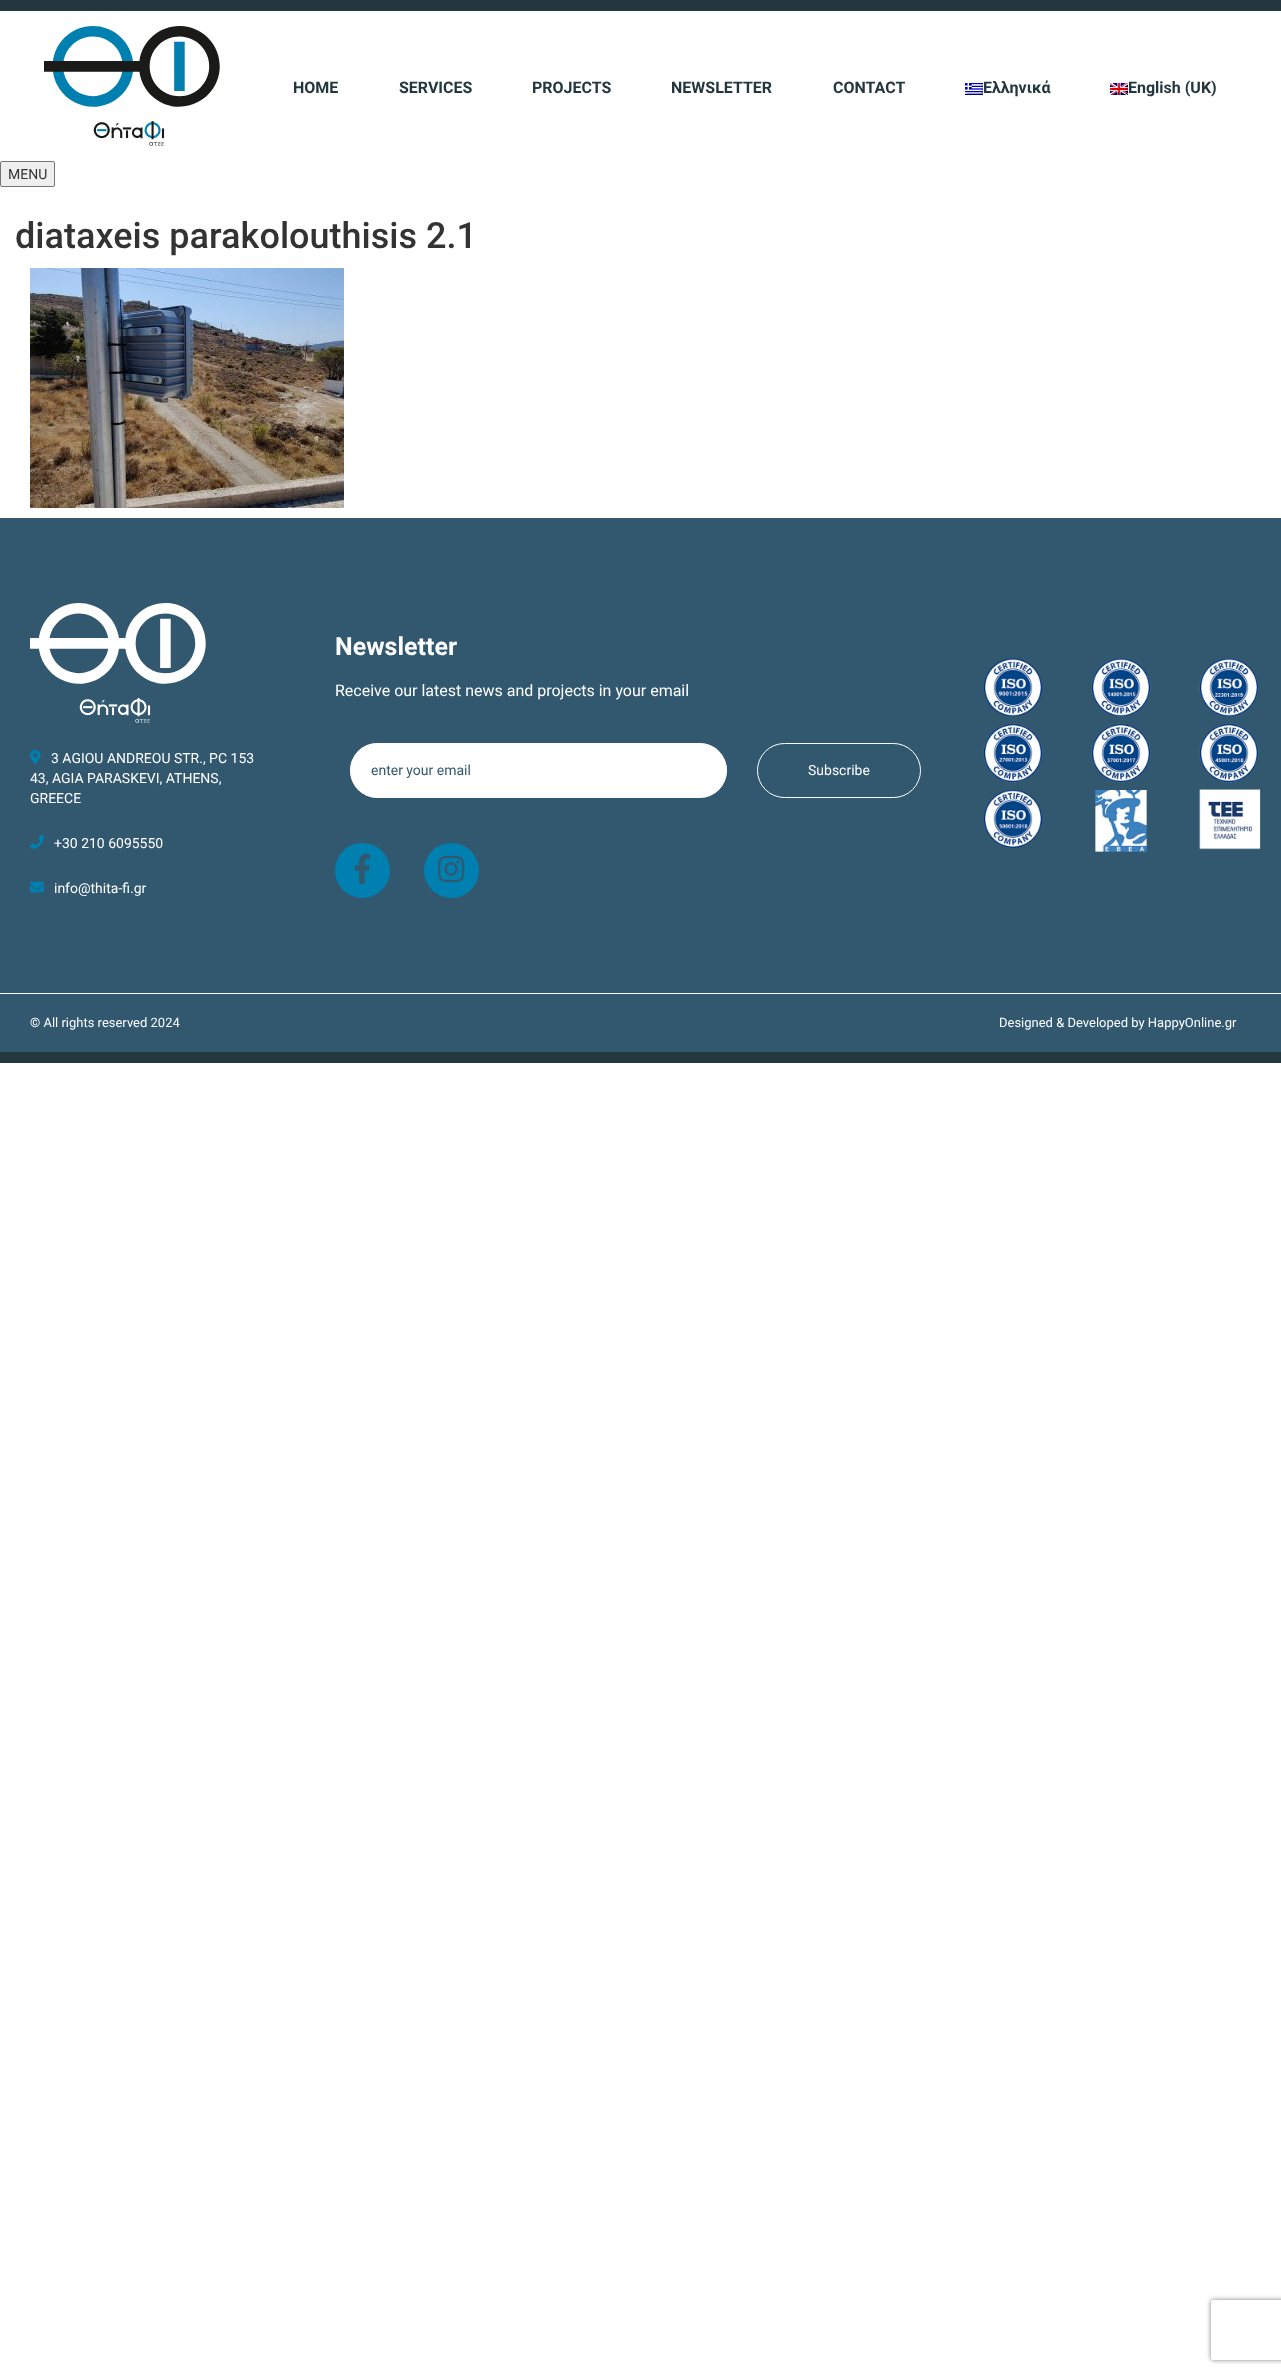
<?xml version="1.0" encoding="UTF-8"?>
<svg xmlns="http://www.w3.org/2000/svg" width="1281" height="2374">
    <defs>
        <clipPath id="clip1"><path d="M 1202 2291 H 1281 V 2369 H 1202 Z M 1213 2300 H 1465 C 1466 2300 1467 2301 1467 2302 V 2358 C 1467 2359 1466 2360 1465 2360 H 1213 C 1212 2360 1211 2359 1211 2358 V 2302 C 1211 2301 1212 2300 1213 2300 Z" clip-rule="evenodd"/></clipPath>
        <filter id="blur1" x="-50%" y="-200%" width="200%" height="500%"><feGaussianBlur stdDeviation="2.5"/></filter>
    </defs>
    <rect width="100%" height="100%" fill="#FFFFFF"/>
    <rect x="0" y="0" width="1281" height="11" fill="#23373E"/>
    <image x="44" y="26" width="176" height="120" href="img_01.png"/>
    <text x="293" y="93" font-family="Roboto" font-size="16" font-weight="700" fill="#23373E">HOME</text>
    <text x="399" y="93" font-family="Roboto" font-size="16" font-weight="700" fill="#23373E">SERVICES</text>
    <text x="532" y="93" font-family="Roboto" font-size="16" font-weight="700" fill="#23373E">PROJECTS</text>
    <text x="671" y="93" font-family="Roboto" font-size="16" font-weight="700" fill="#23373E">NEWSLETTER</text>
    <text x="833" y="93" font-family="Roboto" font-size="16" font-weight="700" fill="#23373E">CONTACT</text>
    <image x="965" y="83" width="18" height="12" href="img_02.png"/>
    <text x="983" y="93" font-family="Roboto" font-size="16" font-weight="700" fill="#23373E">Ελληνικά</text>
    <image x="1110" y="83" width="18" height="12" href="img_03.png"/>
    <text x="1128" y="93" font-family="Roboto" font-size="16" font-weight="700" fill="#23373E">English (UK)</text>
    <rect x="0.5" y="161.5" width="54" height="25" rx="1.5" fill="#EFEFEF" stroke="#767676"/>
    <text x="8" y="179" font-family="Roboto" font-size="14" fill="#333333">MENU</text>
    <text x="15" y="248" font-family="Roboto" font-size="36" font-weight="500" fill="#333333">diataxeis parakolouthisis 2.1</text>
    <image x="30" y="268" width="314" height="240" href="img_04.png"/>
    <rect x="0" y="518" width="1281" height="475" fill="#32586F"/>
    <image x="30" y="603" width="176" height="120" href="img_05.png"/>
    <image x="30" y="750" width="11" height="14" href="img_06.png"/>
    <text x="51" y="763" font-family="Roboto" font-size="14" fill="#FFFFFF">3 AGIOU ANDREOU STR., PC 153</text>
    <text font-family="Roboto" font-size="14" fill="#FFFFFF">
        <tspan x="30" y="783">43, AGIA PARASKEVI, ATHENS,</tspan>
        <tspan x="30" y="803">GREECE</tspan>
    </text>
    <image x="30" y="835" width="14" height="14" href="img_07.png"/>
    <text x="54" y="848" font-family="Roboto" font-size="14" fill="#FFFFFF">+30 210 6095550</text>
    <image x="30" y="881" width="14" height="12" href="img_08.png"/>
    <text x="54" y="893" font-family="Roboto" font-size="14" fill="#FFFFFF">info@thita-fi.gr</text>
    <text x="335" y="655" font-family="Roboto" font-size="25" font-weight="700" fill="#FFFFFF">Newsletter</text>
    <text x="335" y="696" font-family="Roboto" font-size="16" fill="#FFFFFF">Receive our latest news and projects in your email</text>
    <rect x="350" y="743" width="377" height="55" rx="27.5" fill="#FFFFFF"/>
    <rect x="350.5" y="743.5" width="376" height="54" rx="27" fill="none" stroke="#FFFFFF" stroke-opacity="0.57"/>
    <text x="371" y="775" font-family="Roboto" font-size="14" fill="#32586F">enter your email</text>
    <rect x="757.5" y="743.5" width="163" height="54" rx="27" fill="none" stroke="#FFFFFF"/>
    <text x="808" y="775" font-family="Roboto" font-size="14" fill="#FFFFFF">Subscribe</text>
    <circle cx="362.5" cy="870.5" r="27.5" fill="#0080B0"/>
    <image x="354" y="854" width="17" height="30" href="img_09.png"/>
    <circle cx="451.5" cy="870.5" r="27.5" fill="#0080B0"/>
    <image x="438" y="855" width="27" height="28" href="img_10.png"/>
    <image x="983" y="658" width="278" height="194" href="img_11.png"/>
    <rect x="0" y="994" width="1281" height="58" fill="#32586F"/>
    <rect x="0" y="1052" width="1281" height="11" fill="#23373E"/>
    <text x="30" y="1027" font-family="Roboto" font-size="13" fill="#FFFFFF">© All rights reserved 2024</text>
    <text x="999" y="1027" font-family="Roboto" font-size="13" fill="#FFFFFF">Designed &amp; Developed by HappyOnline.gr</text>
    <g clip-path="url(#clip1)">
        <rect x="1211" y="2300" width="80" height="60" rx="2" fill="#808080" filter="url(#blur1)"/>
    </g>
</svg>
